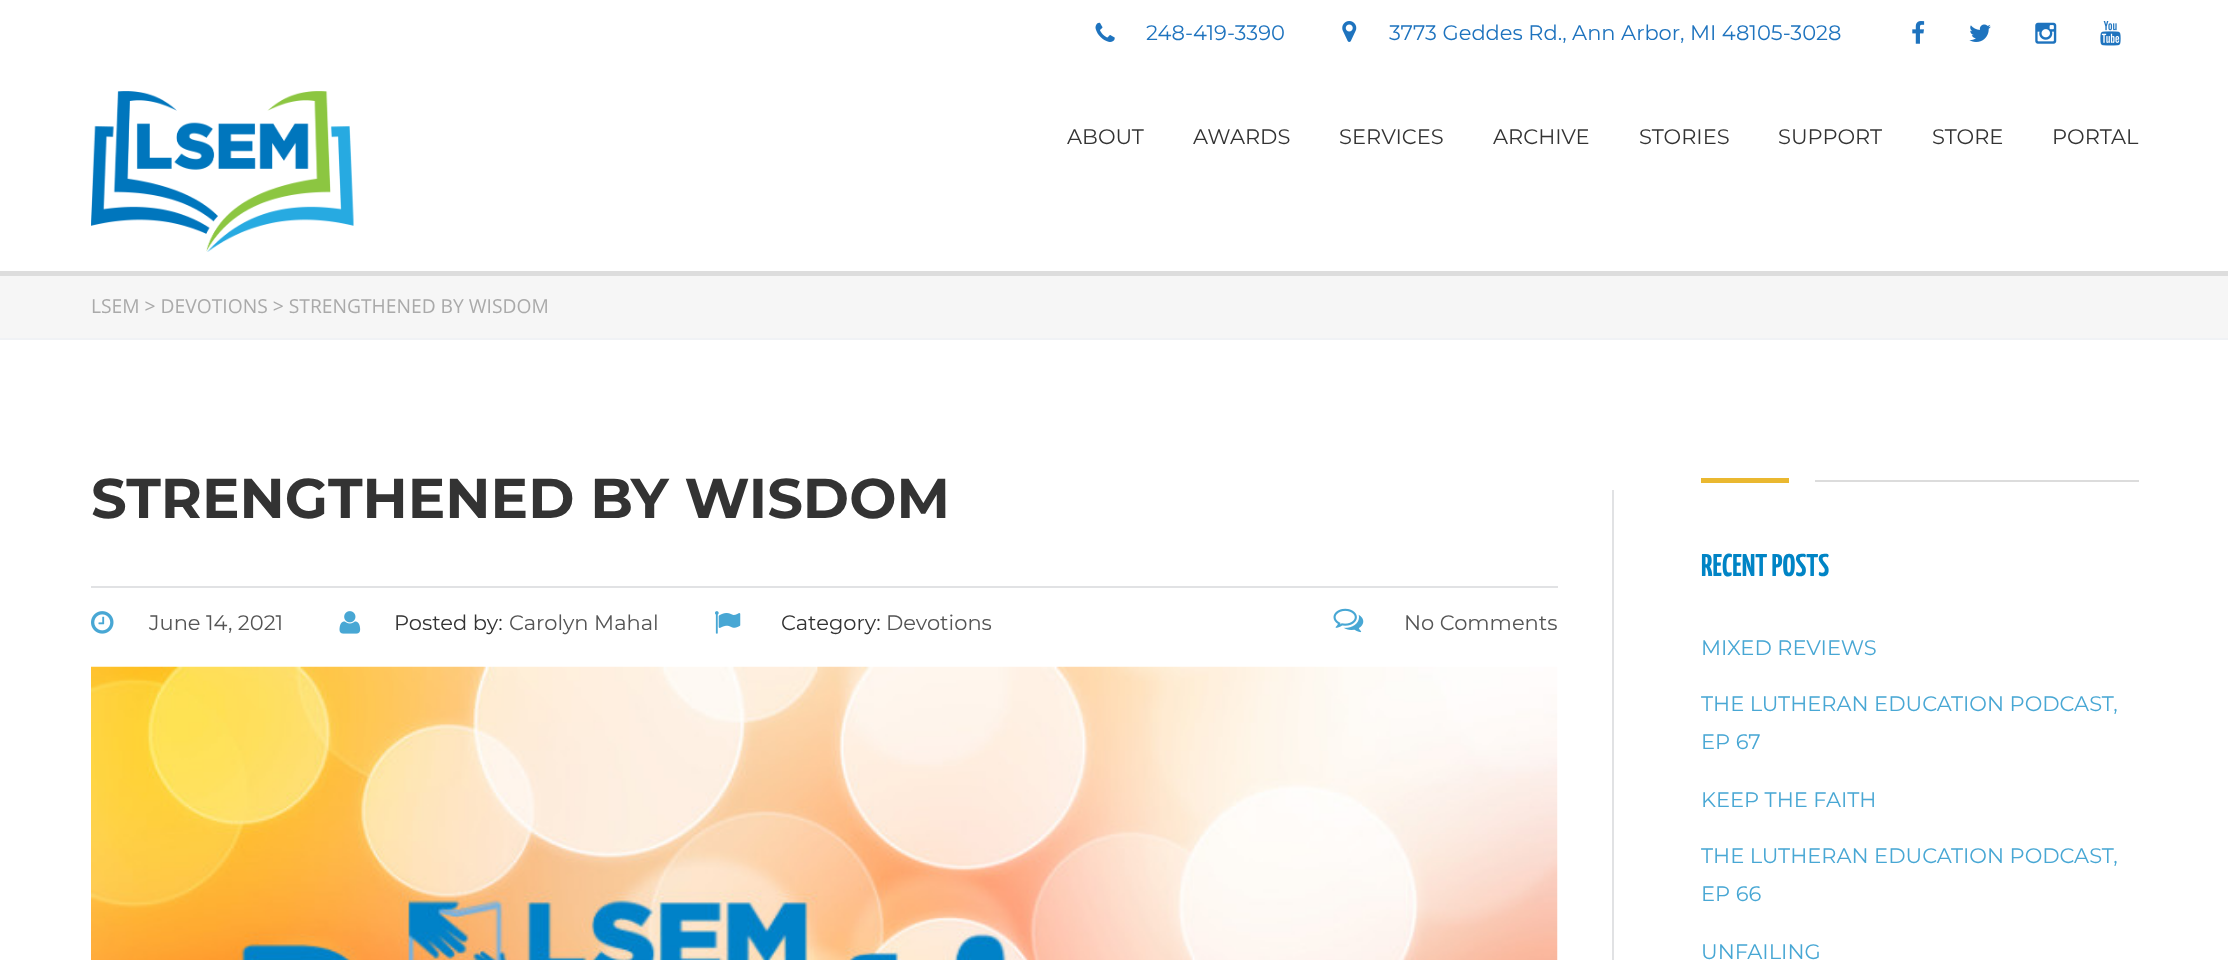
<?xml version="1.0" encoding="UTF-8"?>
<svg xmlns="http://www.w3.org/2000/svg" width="2228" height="960">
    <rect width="100%" height="100%" fill="#FFFFFF"/>
    <image x="1095" y="22" width="20" height="20" href="img_01.png"/>
    <text x="1146" y="40" font-family="Montserrat" font-size="21" fill="#1E73BE">248-419-3390</text>
    <image x="1342" y="21" width="15" height="21" href="img_02.png"/>
    <text x="1389" y="40" font-family="Montserrat" font-size="21" fill="#1E73BE">3773 Geddes Rd., Ann Arbor, MI 48105-3028</text>
    <image x="1912" y="21" width="13" height="23" href="img_03.png"/>
    <image x="1969" y="24" width="22" height="18" href="img_04.png"/>
    <image x="2035" y="22" width="22" height="22" href="img_05.png"/>
    <image x="2100" y="21" width="21" height="25" href="img_06.png"/>
    <image x="91" y="91" width="263" height="161" href="img_07.png"/>
    <text x="1067" y="144" font-family="Montserrat" font-size="21" fill="#333333">ABOUT</text>
    <text x="1193" y="144" font-family="Montserrat" font-size="21" fill="#333333">AWARDS</text>
    <text x="1339" y="144" font-family="Montserrat" font-size="21" fill="#333333">SERVICES</text>
    <text x="1493" y="144" font-family="Montserrat" font-size="21" fill="#333333">ARCHIVE</text>
    <text x="1639" y="144" font-family="Montserrat" font-size="21" fill="#333333">STORIES</text>
    <text x="1778" y="144" font-family="Montserrat" font-size="21" fill="#333333">SUPPORT</text>
    <text x="1932" y="144" font-family="Montserrat" font-size="21" fill="#333333">STORE</text>
    <text x="2052" y="144" font-family="Montserrat" font-size="21" fill="#333333">PORTAL</text>
    <rect x="0" y="271" width="2228" height="5" fill="#DDDDDD"/>
    <rect x="0" y="276" width="2228" height="62" fill="#F6F6F6"/>
    <rect x="0" y="338" width="2228" height="2" fill="#F0F2F5"/>
    <text x="91" y="313" font-family="Open Sans" font-size="19.25" fill="#AAAAAA">LSEM &gt; DEVOTIONS &gt; STRENGTHENED BY WISDOM</text>
    <rect x="91" y="586" width="1467" height="2" fill="#E1E2E4"/>
    <text x="91" y="518" font-family="Montserrat" font-size="56" font-weight="700" fill="#333333">STRENGTHENED BY WISDOM</text>
    <image x="91" y="611" width="23" height="23" href="img_08.png"/>
    <text x="149" y="630" font-family="Montserrat" font-size="21" fill="#555555">June 14, 2021</text>
    <image x="339" y="611" width="22" height="23" href="img_09.png"/>
    <text x="394" y="630" font-family="Montserrat" font-size="21" fill="#333333">Posted by:</text>
    <text x="509" y="630" font-family="Montserrat" font-size="21" fill="#555555">Carolyn Mahal</text>
    <image x="715" y="611" width="26" height="23" href="img_10.png"/>
    <text x="781" y="630" font-family="Montserrat" font-size="21" fill="#333333">Category:</text>
    <text x="886" y="630" font-family="Montserrat" font-size="21" fill="#555555">Devotions</text>
    <image x="1333" y="608" width="31" height="25" href="img_11.png"/>
    <text x="1404" y="630" font-family="Montserrat" font-size="21" fill="#555555">No Comments</text>
    <image x="91" y="666" width="1467" height="294" href="img_12.png"/>
    <rect x="1612" y="490" width="2" height="470" fill="#E1E2E4"/>
    <rect x="1701" y="478" width="88" height="5" fill="#EAB830"/>
    <rect x="1815" y="480" width="324" height="2" fill="#DCDCDC"/>
    <text x="1701" y="576" font-family="Yanone Kaffeesatz" font-size="31.5" font-weight="700" fill="#0084C5">RECENT POSTS</text>
    <text x="1701" y="655" font-family="Montserrat" font-size="21" fill="#48A7D4">MIXED REVIEWS</text>
    <text font-family="Montserrat" font-size="21" fill="#48A7D4">
        <tspan x="1701" y="711">THE LUTHERAN EDUCATION PODCAST,</tspan>
        <tspan x="1701" y="749">EP 67</tspan>
    </text>
    <text x="1701" y="807" font-family="Montserrat" font-size="21" fill="#48A7D4">KEEP THE FAITH</text>
    <text font-family="Montserrat" font-size="21" fill="#48A7D4">
        <tspan x="1701" y="863">THE LUTHERAN EDUCATION PODCAST,</tspan>
        <tspan x="1701" y="901">EP 66</tspan>
    </text>
    <text x="1701" y="959" font-family="Montserrat" font-size="21" fill="#48A7D4">UNFAILING</text>
</svg>
